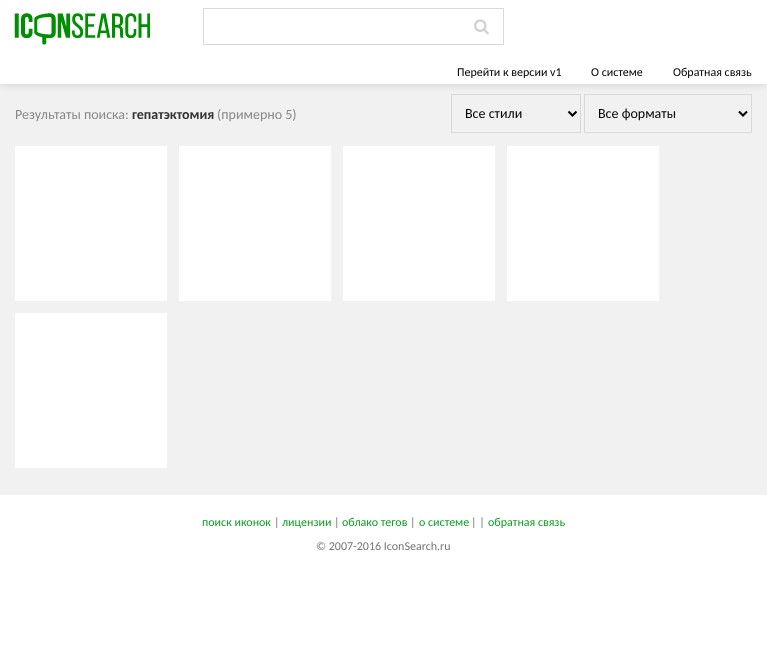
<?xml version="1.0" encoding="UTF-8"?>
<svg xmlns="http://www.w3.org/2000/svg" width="767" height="657">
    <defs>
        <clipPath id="clip1"><rect x="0" y="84" width="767" height="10"/></clipPath>
        <filter id="blur1" x="-50%" y="-200%" width="200%" height="500%"><feGaussianBlur stdDeviation="5"/></filter>
    </defs>
    <rect width="100%" height="100%" fill="#FFFFFF"/>
    <rect x="0" y="84" width="767" height="411" fill="#F1F1F1"/>
    <rect x="451.5" y="94.5" width="129" height="38" fill="none" stroke="#D9D9D9"/>
    <rect x="584.5" y="94.5" width="167" height="38" fill="none" stroke="#D9D9D9"/>
    <g clip-path="url(#clip1)">
        <rect x="0" y="0" width="767" height="84" fill="#CCCCCC" filter="url(#blur1)"/>
    </g>
    <image x="14" y="13" width="136" height="32" href="img_01.png"/>
    <rect x="203.5" y="8.5" width="300" height="36" fill="none" stroke="#D9D9D9"/>
    <image x="474" y="19" width="15" height="16" href="img_02.png"/>
    <text x="457" y="76" font-family="Carlito" font-size="12" fill="#000000">Перейти к версии v1</text>
    <text x="591" y="76" font-family="Carlito" font-size="12" fill="#000000">О системе</text>
    <text x="673" y="76" font-family="Carlito" font-size="12" fill="#000000">Обратная связь</text>
    <text x="15" y="119" font-family="Carlito" font-size="14" fill="#888888">Результаты поиска:</text>
    <text x="132" y="119" font-family="Carlito" font-size="14" font-weight="700" fill="#333333">гепатэктомия</text>
    <text x="217" y="119" font-family="Carlito" font-size="14" fill="#888888">(примерно 5)</text>
    <path d="M 568.5 111.5 L 572.5 115.5 L 576.5 111.5" fill="none" stroke="#000000" stroke-width="2"/>
    <text x="465" y="118" font-family="Carlito" font-size="14" fill="#000000">Все стили</text>
    <path d="M 739 111.5 L 743 115.5 L 747 111.5" fill="none" stroke="#000000" stroke-width="2"/>
    <text x="598" y="118" font-family="Carlito" font-size="14" fill="#000000">Все форматы</text>
    <rect x="15" y="146" width="152" height="155" fill="#FFFFFF"/>
    <rect x="179" y="146" width="152" height="155" fill="#FFFFFF"/>
    <rect x="343" y="146" width="152" height="155" fill="#FFFFFF"/>
    <rect x="507" y="146" width="152" height="155" fill="#FFFFFF"/>
    <rect x="15" y="313" width="152" height="155" fill="#FFFFFF"/>
    <text x="202" y="526" font-family="Carlito" font-size="12" fill="#129E26">поиск иконок</text>
    <text x="274" y="526" font-family="Carlito" font-size="12" fill="#777777">|</text>
    <text x="282" y="526" font-family="Carlito" font-size="12" fill="#129E26">лицензии</text>
    <text x="334" y="526" font-family="Carlito" font-size="12" fill="#777777">|</text>
    <text x="342" y="526" font-family="Carlito" font-size="12" fill="#129E26">облако тегов</text>
    <text x="410" y="526" font-family="Carlito" font-size="12" fill="#777777">|</text>
    <text x="419" y="526" font-family="Carlito" font-size="12" fill="#129E26">о системе</text>
    <text x="471" y="526" font-family="Carlito" font-size="12" fill="#777777">| |</text>
    <text x="488" y="526" font-family="Carlito" font-size="12" fill="#129E26">обратная связь</text>
    <text x="316" y="550" font-family="Carlito" font-size="12" fill="#777777">© 2007-2016 IconSearch.ru</text>
</svg>
